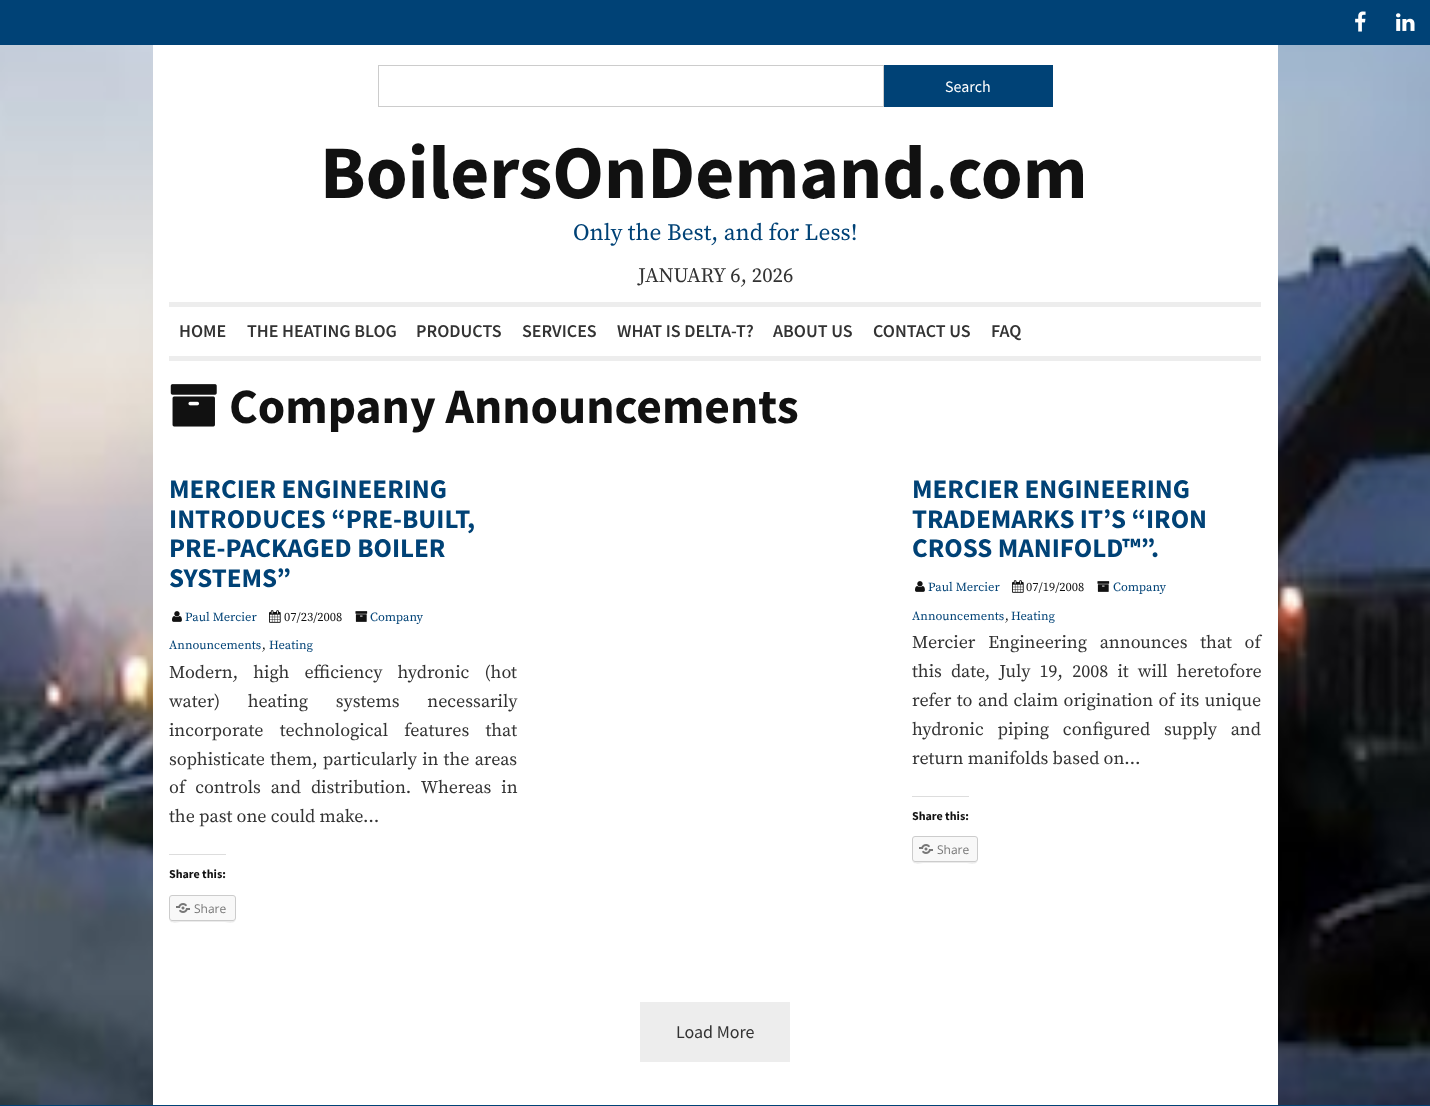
<?xml version="1.0" encoding="UTF-8"?>
<svg xmlns="http://www.w3.org/2000/svg" width="1430" height="1106">
    <rect width="100%" height="100%" fill="#FFFFFF"/>
    <rect x="0" y="0" width="1430" height="45" fill="#004276"/>
    <image x="1355" y="11" width="11" height="21" href="img_01.png"/>
    <image x="1396" y="13" width="19" height="18" href="img_02.png"/>
    <image x="0" y="45" width="1430" height="1060" href="img_03.png"/>
    <rect x="153" y="45" width="1125" height="1060" fill="#FFFFFF"/>
    <rect x="378.5" y="65.5" width="505" height="41" fill="none" stroke="#CCCCCC"/>
    <rect x="884" y="65" width="169" height="42" fill="#004276"/>
    <text x="945" y="92" font-family="Source Sans Pro" font-size="16" fill="#FFFFFF">Search</text>
    <text x="320" y="198" font-family="Source Sans Pro" font-size="75.6" font-weight="700" fill="#111111">BoilersOnDemand.com</text>
    <text x="573" y="240" font-family="Source Serif Pro" font-size="23.4" fill="#004276">Only the Best, and for Less!</text>
    <text x="638" y="282" font-family="Source Serif Pro" font-size="20.75" fill="#333333">JANUARY 6, 2026</text>
    <rect x="169" y="302" width="1092" height="5" fill="#EDEDED"/>
    <rect x="169" y="356" width="1092" height="5" fill="#EDEDED"/>
    <text x="179" y="337" font-family="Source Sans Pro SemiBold" font-size="18" font-weight="600" fill="#333333">HOME</text>
    <text x="247" y="337" font-family="Source Sans Pro SemiBold" font-size="18" font-weight="600" fill="#333333">THE HEATING BLOG</text>
    <text x="416" y="337" font-family="Source Sans Pro SemiBold" font-size="18" font-weight="600" fill="#333333">PRODUCTS</text>
    <text x="522" y="337" font-family="Source Sans Pro SemiBold" font-size="18" font-weight="600" fill="#333333">SERVICES</text>
    <text x="617" y="337" font-family="Source Sans Pro SemiBold" font-size="18" font-weight="600" fill="#333333">WHAT IS DELTA-T?</text>
    <text x="773" y="337" font-family="Source Sans Pro SemiBold" font-size="18" font-weight="600" fill="#333333">ABOUT US</text>
    <text x="873" y="337" font-family="Source Sans Pro SemiBold" font-size="18" font-weight="600" fill="#333333">CONTACT US</text>
    <text x="991" y="337" font-family="Source Sans Pro SemiBold" font-size="18" font-weight="600" fill="#333333">FAQ</text>
    <image x="170" y="384" width="47" height="43" href="img_04.png"/>
    <text x="229" y="423" font-family="Source Sans Pro" font-size="49.5" font-weight="700" fill="#111111">Company Announcements</text>
    <text font-family="Source Sans Pro" font-size="27" font-weight="700" fill="#004276">
        <tspan x="169" y="498">MERCIER ENGINEERING</tspan>
        <tspan x="169" y="528">INTRODUCES “PRE-BUILT,</tspan>
        <tspan x="169" y="557">PRE-PACKAGED BOILER</tspan>
        <tspan x="169" y="587">SYSTEMS”</tspan>
    </text>
    <image x="172" y="611" width="10" height="11" href="img_05.png"/>
    <text x="185" y="621" font-family="Source Serif Pro" font-size="12.5" fill="#004276">Paul Mercier</text>
    <image x="355" y="611" width="13" height="11" href="img_06.png"/>
    <text x="370" y="621" font-family="Source Serif Pro" font-size="12.5" fill="#004276">Company</text>
    <text x="169" y="649" font-family="Source Serif Pro" font-size="12.5" fill="#004276">Announcements</text>
    <text x="262" y="649" font-family="Source Serif Pro" font-size="12.5" fill="#111111">,</text>
    <text x="269" y="649" font-family="Source Serif Pro" font-size="12.5" fill="#004276">Heating</text>
    <image x="269" y="610" width="12" height="13" href="img_07.png"/>
    <text x="284" y="621" font-family="Source Serif Pro" font-size="12.5" fill="#111111">07/23/2008</text>
    <text font-family="Source Serif Pro" font-size="18" fill="#333333">
        <tspan x="169" y="678" word-spacing="11">Modern, high efficiency hydronic (hot</tspan>
        <tspan x="169" y="707" word-spacing="23.5">water) heating systems necessarily</tspan>
        <tspan x="169" y="736" word-spacing="12">incorporate technological features that</tspan>
        <tspan x="169" y="765" word-spacing="1">sophisticate them, particularly in the areas</tspan>
        <tspan x="169" y="793" word-spacing="5.75">of controls and distribution. Whereas in</tspan>
        <tspan x="169" y="822">the past one could make…</tspan>
    </text>
    <rect x="169" y="854" width="57" height="1" fill="#DDDDDD"/>
    <text x="169" y="878" font-family="Source Sans Pro" font-size="12" font-weight="700" fill="#111111">Share this:</text>
    <path d="M 169 918 C 169 925 178 922 182 922 H 223 C 227 922 236 925 236 918 C 236 920 235 921 233 921 H 172 C 170 921 169 920 169 918 Z" fill="#EBEBEB"/>
    <rect x="169.5" y="895.5" width="66" height="25" rx="2.5" fill="#F8F8F8" stroke="#CCCCCC"/>
    <image x="176" y="903" width="14" height="10" href="img_08.png"/>
    <text x="194" y="913" font-family="Open Sans" font-size="12" fill="#777777">Share</text>
    <text font-family="Source Sans Pro" font-size="27" font-weight="700" fill="#004276">
        <tspan x="912" y="498">MERCIER ENGINEERING</tspan>
        <tspan x="912" y="528">TRADEMARKS IT’S “IRON</tspan>
        <tspan x="912" y="557">CROSS MANIFOLD™”.</tspan>
    </text>
    <image x="915" y="581" width="10" height="11" href="img_05.png"/>
    <text x="928" y="591" font-family="Source Serif Pro" font-size="12.5" fill="#004276">Paul Mercier</text>
    <image x="1097" y="581" width="13" height="11" href="img_06.png"/>
    <text x="1113" y="591" font-family="Source Serif Pro" font-size="12.5" fill="#004276">Company</text>
    <text x="912" y="620" font-family="Source Serif Pro" font-size="12.5" fill="#004276">Announcements</text>
    <text x="1005" y="620" font-family="Source Serif Pro" font-size="12.5" fill="#111111">,</text>
    <text x="1011" y="620" font-family="Source Serif Pro" font-size="12.5" fill="#004276">Heating</text>
    <image x="1012" y="580" width="12" height="13" href="img_07.png"/>
    <text x="1026" y="591" font-family="Source Serif Pro" font-size="12.5" fill="#111111">07/19/2008</text>
    <text font-family="Source Serif Pro" font-size="18" fill="#333333">
        <tspan x="912" y="648" word-spacing="8.5">Mercier Engineering announces that of</tspan>
        <tspan x="912" y="677" word-spacing="5">this date, July 19, 2008 it will heretofore</tspan>
        <tspan x="912" y="706" word-spacing="1.25">refer to and claim origination of its unique</tspan>
        <tspan x="912" y="735" word-spacing="9.5">hydronic piping configured supply and</tspan>
        <tspan x="912" y="764">return manifolds based on…</tspan>
    </text>
    <rect x="912" y="796" width="57" height="1" fill="#DDDDDD"/>
    <text x="912" y="820" font-family="Source Sans Pro" font-size="12" font-weight="700" fill="#111111">Share this:</text>
    <path d="M 912 859 C 912 866 921 863 925 863 H 965 C 969 863 978 866 978 859 C 978 861 977 862 975 862 H 915 C 913 862 912 861 912 859 Z" fill="#EBEBEB"/>
    <rect x="912.5" y="836.5" width="65" height="25" rx="2.5" fill="#F8F8F8" stroke="#CCCCCC"/>
    <image x="919" y="844" width="14" height="10" href="img_08.png"/>
    <text x="937" y="854" font-family="Open Sans" font-size="12" fill="#777777">Share</text>
    <rect x="640" y="1002" width="150" height="60" fill="#EDEDED"/>
    <text x="676" y="1038" font-family="Source Sans Pro" font-size="18" fill="#333333">Load More</text>
    <rect x="0" y="1105" width="1430" height="1" fill="#004276"/>
</svg>
